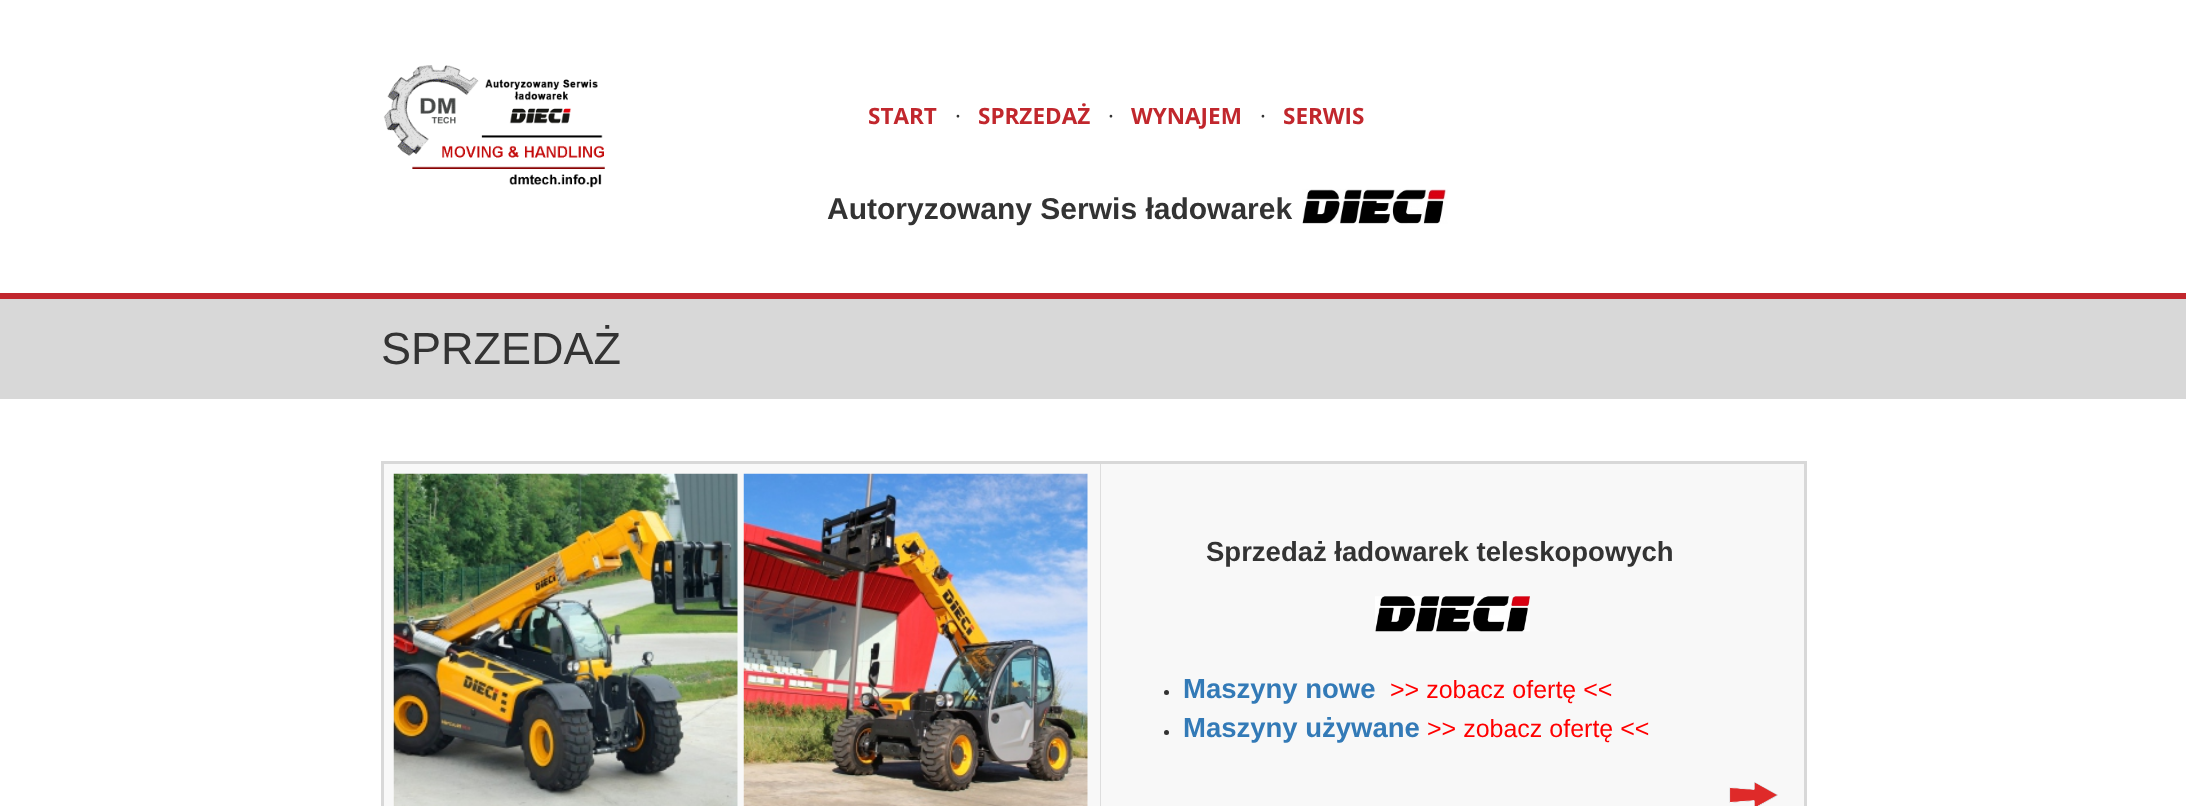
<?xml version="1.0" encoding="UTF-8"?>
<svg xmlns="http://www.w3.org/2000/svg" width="2186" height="806">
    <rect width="100%" height="100%" fill="#FFFFFF"/>
    <rect x="0" y="293" width="2186" height="6" fill="#C1272D"/>
    <image x="383" y="65" width="222" height="123" href="img_01.png"/>
    <text x="868" y="124" font-family="Open Sans" font-size="22.5" font-weight="700" fill="#C1272D">START</text>
    <text x="955" y="124" font-family="Open Sans" font-size="22.5" fill="#333333">·</text>
    <text x="978" y="124" font-family="Open Sans" font-size="22.5" font-weight="700" fill="#C1272D">SPRZEDAŻ</text>
    <text x="1108" y="124" font-family="Open Sans" font-size="22.5" fill="#333333">·</text>
    <text x="1131" y="124" font-family="Open Sans" font-size="22.5" font-weight="700" fill="#C1272D">WYNAJEM</text>
    <text x="1260" y="124" font-family="Open Sans" font-size="22.5" fill="#333333">·</text>
    <text x="1283" y="124" font-family="Open Sans" font-size="22.5" font-weight="700" fill="#C1272D">SERWIS</text>
    <text x="827" y="219" font-family="Liberation Sans" font-size="30" font-weight="700" fill="#333333">Autoryzowany Serwis ładowarek</text>
    <image x="1302" y="189" width="146" height="35" href="img_02.png"/>
    <rect x="0" y="299" width="2186" height="100" fill="#D8D8D8"/>
    <text x="381" y="364" font-family="Liberation Sans" font-size="45" fill="#333333">SPRZEDAŻ</text>
    <rect x="384" y="464" width="1420" height="342" fill="#F8F8F8"/>
    <rect x="1100" y="461" width="1" height="345" fill="#DDDDDD"/>
    <rect x="381" y="461" width="1425" height="3" fill="#D8D8D8"/>
    <rect x="1804" y="461" width="3" height="345" fill="#D8D8D8"/>
    <rect x="381" y="461" width="3" height="345" fill="#D8D8D8"/>
    <image x="393" y="473" width="345" height="333" href="img_03.png"/>
    <image x="743" y="473" width="345" height="333" href="img_04.png"/>
    <text x="1206" y="561" font-family="Liberation Sans" font-size="27.5" font-weight="700" fill="#333333">Sprzedaż ładowarek teleskopowych</text>
    <image x="1375" y="596" width="155" height="36" href="img_05.png"/>
    <circle cx="1166.5" cy="692.5" r="2.5" fill="#333333"/>
    <text x="1183" y="698" font-family="Liberation Sans" font-size="27.5" font-weight="700" fill="#337AB7">Maszyny nowe</text>
    <text x="1390" y="698" font-family="Liberation Sans" font-size="25" fill="#FF0000">&gt;&gt; zobacz ofertę &lt;&lt;</text>
    <circle cx="1166.5" cy="732.5" r="2.5" fill="#333333"/>
    <text x="1183" y="737" font-family="Liberation Sans" font-size="27.5" font-weight="700" fill="#337AB7">Maszyny używane</text>
    <text x="1427" y="737" font-family="Liberation Sans" font-size="25" fill="#FF0000">&gt;&gt; zobacz ofertę &lt;&lt;</text>
    <image x="1729" y="782" width="49" height="24" href="img_06.png"/>
</svg>
